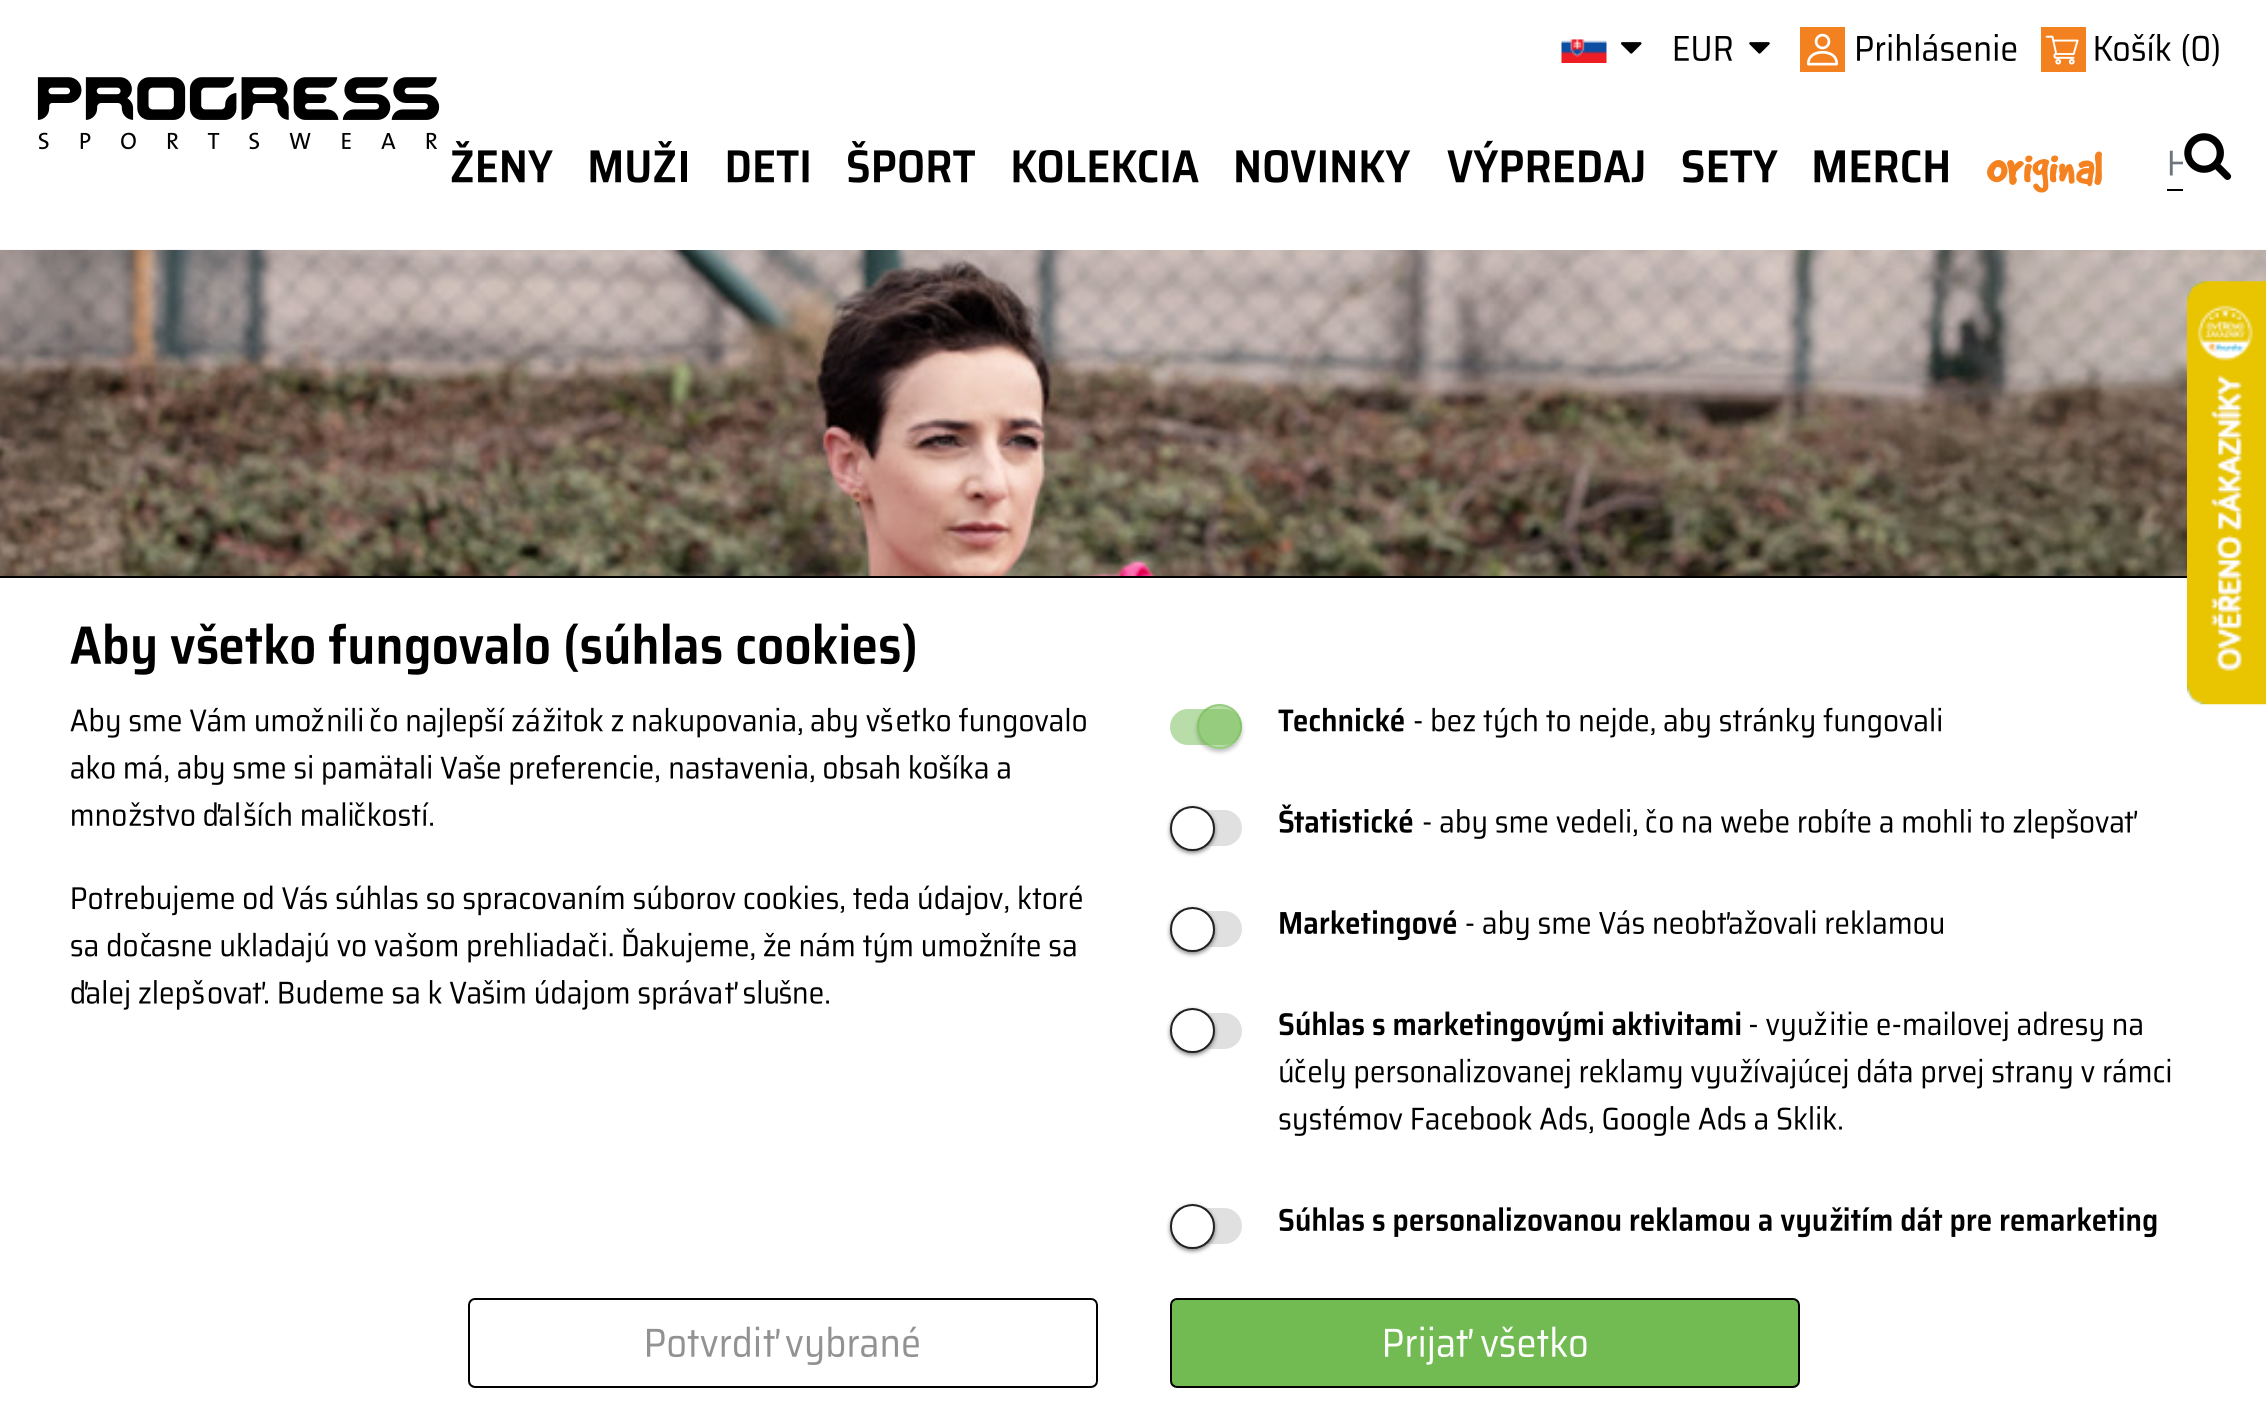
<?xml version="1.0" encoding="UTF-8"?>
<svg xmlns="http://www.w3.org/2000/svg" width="2266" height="1423">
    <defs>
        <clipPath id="clip1"><path d="M 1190 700 H 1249 V 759 H 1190 Z M 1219.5 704 C 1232 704 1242 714 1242 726.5 C 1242 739 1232 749 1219.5 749 C 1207 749 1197 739 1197 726.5 C 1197 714 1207 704 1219.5 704 Z" clip-rule="evenodd"/></clipPath>
        <filter id="blur1" x="-50%" y="-200%" width="200%" height="500%"><feGaussianBlur stdDeviation="2"/></filter>
    </defs>
    <rect width="100%" height="100%" fill="#FFFFFF"/>
    <image x="1561" y="39" width="46" height="24" href="img_01.png"/>
    <image x="1621" y="42" width="21" height="12" href="img_02.png"/>
    <image x="1674" y="36" width="58" height="25" href="img_03.png"/>
    <image x="1749" y="42" width="21" height="12" href="img_04.png"/>
    <image x="1800" y="27" width="45" height="45" href="img_05.png"/>
    <image x="1857" y="34" width="160" height="27" href="img_06.png"/>
    <image x="2041" y="27" width="45" height="45" href="img_07.png"/>
    <image x="2095" y="36" width="34" height="25" href="img_08.png"/>
    <image x="2132" y="34" width="13" height="27" href="img_09.png"/>
    <image x="2149" y="34" width="22" height="27" href="img_10.png"/>
    <image x="2182" y="34" width="37" height="33" href="img_11.png"/>
    <image x="37" y="77" width="403" height="73" href="img_12.png"/>
    <image x="0" y="249" width="2266" height="327" href="img_27.png"/>
    <rect x="441" y="249" width="1726" height="1" fill="#FFFFFF"/>
    <image x="451" y="141" width="22" height="42" href="img_13.png"/>
    <image x="478" y="150" width="75" height="33" href="img_14.png"/>
    <image x="590" y="150" width="60" height="33" href="img_15.png"/>
    <image x="654" y="141" width="22" height="42" href="img_16.png"/>
    <rect x="681" y="151" width="6" height="31" fill="#000000"/>
    <image x="727" y="150" width="82" height="33" href="img_17.png"/>
    <image x="848" y="141" width="21" height="42" href="img_18.png"/>
    <image x="874" y="150" width="101" height="33" href="img_19.png"/>
    <image x="1013" y="150" width="186" height="33" href="img_20.png"/>
    <image x="1236" y="150" width="175" height="33" href="img_21.png"/>
    <image x="1447" y="140" width="197" height="43" href="img_22.png"/>
    <image x="1682" y="150" width="96" height="33" href="img_23.png"/>
    <image x="1814" y="150" width="134" height="33" href="img_24.png"/>
    <text x="1986" y="185" font-family="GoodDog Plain" font-size="50" font-weight="700" fill="#F58220">Original</text>
    <rect x="2167" y="189" width="16" height="2" fill="#000000"/>
    <image x="2169" y="150" width="14" height="26" href="img_25.png"/>
    <image x="2184" y="133" width="48" height="47" href="img_26.png"/>
    <image x="2187" y="281" width="79" height="424" href="img_28.png"/>
    <rect x="0" y="576" width="2187" height="2" fill="#000000"/>
    <image x="70" y="623" width="125" height="52" href="img_29.png"/>
    <image x="197" y="623" width="21" height="42" href="img_30.png"/>
    <image x="220" y="623" width="695" height="52" href="img_31.png"/>
    <image x="70" y="707" width="240" height="31" href="img_32.png"/>
    <image x="311" y="707" width="13" height="25" href="img_33.png"/>
    <image x="328" y="707" width="35" height="25" href="img_34.png"/>
    <image x="370" y="707" width="11" height="25" href="img_35.png"/>
    <image x="384" y="707" width="99" height="31" href="img_36.png"/>
    <image x="485" y="707" width="12" height="25" href="img_37.png"/>
    <image x="499" y="707" width="40" height="25" href="img_38.png"/>
    <image x="543" y="707" width="12" height="25" href="img_39.png"/>
    <image x="558" y="707" width="244" height="31" href="img_40.png"/>
    <image x="811" y="707" width="69" height="31" href="img_41.png"/>
    <image x="881" y="707" width="12" height="25" href="img_37.png"/>
    <image x="897" y="707" width="189" height="31" href="img_42.png"/>
    <image x="71" y="755" width="400" height="30" href="img_43.png"/>
    <image x="474" y="755" width="11" height="24" href="img_44.png"/>
    <image x="487" y="755" width="172" height="30" href="img_45.png"/>
    <image x="670" y="755" width="267" height="28" href="img_46.png"/>
    <image x="939" y="755" width="12" height="24" href="img_47.png"/>
    <image x="954" y="755" width="56" height="24" href="img_48.png"/>
    <image x="72" y="809" width="54" height="17" href="img_49.png"/>
    <image x="129" y="802" width="12" height="24" href="img_50.png"/>
    <image x="143" y="805" width="52" height="21" href="img_51.png"/>
    <image x="204" y="802" width="17" height="24" href="img_52.png"/>
    <image x="219" y="802" width="20" height="24" href="img_53.png"/>
    <image x="244" y="802" width="12" height="24" href="img_54.png"/>
    <image x="258" y="802" width="95" height="24" href="img_55.png"/>
    <image x="355" y="802" width="10" height="24" href="img_56.png"/>
    <image x="369" y="802" width="64" height="24" href="img_57.png"/>
    <image x="72" y="885" width="937" height="31" href="img_58.png"/>
    <image x="1019" y="885" width="63" height="25" href="img_59.png"/>
    <image x="71" y="932" width="66" height="25" href="img_60.png"/>
    <image x="141" y="932" width="10" height="25" href="img_61.png"/>
    <image x="152" y="932" width="250" height="31" href="img_62.png"/>
    <image x="406" y="932" width="12" height="25" href="img_63.png"/>
    <image x="420" y="932" width="165" height="31" href="img_64.png"/>
    <image x="589" y="932" width="10" height="25" href="img_65.png"/>
    <image x="603" y="932" width="10" height="25" href="img_66.png"/>
    <image x="623" y="928" width="15" height="29" href="img_67.png"/>
    <image x="640" y="932" width="115" height="31" href="img_68.png"/>
    <image x="764" y="932" width="12" height="25" href="img_69.png"/>
    <image x="778" y="932" width="199" height="31" href="img_70.png"/>
    <image x="980" y="932" width="12" height="25" href="img_69.png"/>
    <image x="994" y="932" width="82" height="25" href="img_71.png"/>
    <image x="71" y="980" width="17" height="24" href="img_72.png"/>
    <image x="86" y="980" width="104" height="30" href="img_73.png"/>
    <image x="192" y="980" width="12" height="24" href="img_47.png"/>
    <image x="208" y="987" width="43" height="17" href="img_74.png"/>
    <image x="252" y="981" width="14" height="23" href="img_75.png"/>
    <path d="M 265 1003.5 V 1000.5 H 268 V 1003.5 Z" fill="#000000"/>
    <image x="279" y="980" width="201" height="24" href="img_76.png"/>
    <image x="483" y="980" width="11" height="24" href="img_44.png"/>
    <image x="497" y="980" width="224" height="30" href="img_77.png"/>
    <image x="725" y="981" width="13" height="23" href="img_78.png"/>
    <image x="743" y="980" width="35" height="24" href="img_79.png"/>
    <image x="780" y="980" width="11" height="24" href="img_44.png"/>
    <image x="794" y="987" width="35" height="17" href="img_80.png"/>
    <rect x="1170" y="709" width="72" height="36" rx="18" fill="#B9DDA9"/>
    <g clip-path="url(#clip1)">
        <rect x="1197" y="707" width="45" height="45" rx="22.5" fill="#000000" fill-opacity="0.25" filter="url(#blur1)"/>
    </g>
    <circle cx="1219.5" cy="726.5" r="22.5" fill="#72BB53" fill-opacity="0.5"/>
    <circle cx="1219.5" cy="726.5" r="21.5" fill="none" stroke="#72BB53" stroke-opacity="0.5" stroke-width="2"/>
    <image x="1278" y="707" width="126" height="25" href="img_81.png"/>
    <image x="1414" y="707" width="528" height="31" href="img_82.png"/>
    <rect x="1170" y="810" width="72" height="36" rx="18" fill="#E0E0E0"/>
    <rect x="1170" y="808" width="45" height="45" rx="22.5" fill="#000000" fill-opacity="0.5" filter="url(#blur1)"/>
    <circle cx="1192.5" cy="828.5" r="21.5" fill="#FFFFFF" stroke="#222222" stroke-width="2"/>
    <image x="1279" y="804" width="15" height="29" href="img_83.png"/>
    <image x="1294" y="809" width="119" height="24" href="img_84.png"/>
    <image x="1423" y="809" width="214" height="30" href="img_85.png"/>
    <image x="1646" y="809" width="11" height="24" href="img_86.png"/>
    <image x="1660" y="809" width="404" height="30" href="img_87.png"/>
    <image x="2067" y="809" width="11" height="24" href="img_44.png"/>
    <image x="2080" y="816" width="43" height="17" href="img_74.png"/>
    <image x="2124" y="810" width="14" height="23" href="img_75.png"/>
    <rect x="1170" y="911" width="72" height="36" rx="18" fill="#E0E0E0"/>
    <rect x="1170" y="909" width="45" height="45" rx="22.5" fill="#000000" fill-opacity="0.5" filter="url(#blur1)"/>
    <circle cx="1192.5" cy="929.5" r="21.5" fill="#FFFFFF" stroke="#222222" stroke-width="2"/>
    <image x="1280" y="910" width="177" height="31" href="img_88.png"/>
    <image x="1466" y="910" width="250" height="31" href="img_89.png"/>
    <image x="1717" y="912" width="13" height="22" href="img_90.png"/>
    <image x="1729" y="917" width="13" height="17" href="img_91.png"/>
    <image x="1745" y="910" width="12" height="24" href="img_92.png"/>
    <image x="1759" y="910" width="184" height="24" href="img_93.png"/>
    <rect x="1170" y="1013" width="72" height="36" rx="18" fill="#E0E0E0"/>
    <rect x="1170" y="1010" width="45" height="45" rx="22.5" fill="#000000" fill-opacity="0.5" filter="url(#blur1)"/>
    <circle cx="1192.5" cy="1030.5" r="21.5" fill="#FFFFFF" stroke="#222222" stroke-width="2"/>
    <image x="1279" y="1011" width="462" height="31" href="img_94.png"/>
    <image x="1750" y="1018" width="62" height="24" href="img_95.png"/>
    <image x="1814" y="1011" width="13" height="24" href="img_96.png"/>
    <image x="1831" y="1011" width="311" height="31" href="img_97.png"/>
    <image x="1280" y="1058" width="13" height="25" href="img_98.png"/>
    <image x="1295" y="1058" width="11" height="25" href="img_99.png"/>
    <image x="1309" y="1058" width="428" height="31" href="img_100.png"/>
    <image x="1740" y="1058" width="12" height="25" href="img_39.png"/>
    <image x="1755" y="1058" width="416" height="31" href="img_101.png"/>
    <image x="1279" y="1106" width="563" height="30" href="img_102.png"/>
    <rect x="1170" y="1208" width="72" height="36" rx="18" fill="#E0E0E0"/>
    <rect x="1170" y="1206" width="45" height="45" rx="22.5" fill="#000000" fill-opacity="0.5" filter="url(#blur1)"/>
    <circle cx="1192.5" cy="1226.5" r="21.5" fill="#FFFFFF" stroke="#222222" stroke-width="2"/>
    <image x="1279" y="1207" width="548" height="31" href="img_103.png"/>
    <image x="1830" y="1207" width="13" height="24" href="img_104.png"/>
    <image x="1844" y="1207" width="313" height="31" href="img_105.png"/>
    <rect x="469" y="1299" width="628" height="88" rx="6" fill="none" stroke="#000000" stroke-width="2"/>
    <image x="647" y="1326" width="113" height="32" href="img_106.png"/>
    <image x="763" y="1328" width="17" height="29" href="img_107.png"/>
    <image x="785" y="1326" width="134" height="39" href="img_108.png"/>
    <rect x="1171" y="1299" width="628" height="88" rx="6" fill="#72BB53" stroke="#000000" stroke-width="2"/>
    <image x="1385" y="1326" width="69" height="39" href="img_109.png"/>
    <image x="1456" y="1328" width="17" height="29" href="img_110.png"/>
    <image x="1481" y="1336" width="18" height="21" href="img_111.png"/>
    <image x="1500" y="1326" width="15" height="32" href="img_112.png"/>
    <image x="1518" y="1326" width="69" height="32" href="img_113.png"/>
</svg>
